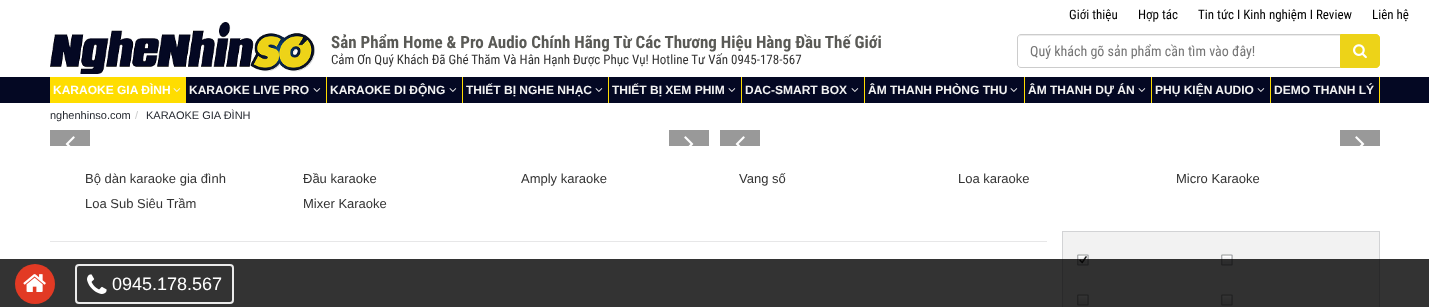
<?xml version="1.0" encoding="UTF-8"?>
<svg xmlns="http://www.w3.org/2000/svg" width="1429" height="307">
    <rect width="100%" height="100%" fill="#FFFFFF"/>
    <text x="1069" y="19" font-family="Roboto Condensed" font-size="13" fill="#000000">Giới thiệu</text>
    <text x="1138" y="19" font-family="Roboto Condensed" font-size="13" fill="#000000">Hợp tác</text>
    <text x="1198" y="19" font-family="Roboto Condensed" font-size="13" fill="#000000">Tin tức I Kinh nghiệm I Review</text>
    <text x="1372" y="19" font-family="Roboto Condensed" font-size="13" fill="#000000">Liên hệ</text>
    <image x="50" y="22" width="265" height="52" href="img_01.png"/>
    <text x="331" y="48" font-family="Roboto Condensed" font-size="17" font-weight="700" fill="#5A5A56">Sản Phẩm Home &amp; Pro Audio Chính Hãng Từ Các Thương Hiệu Hàng Đầu Thế Giới</text>
    <text x="331" y="64" font-family="Roboto Condensed" font-size="13" fill="#333333">Cảm Ơn Quý Khách Đã Ghé Thăm Và Hân Hạnh Được Phục Vụ! Hotline Tư Vấn 0945-178-567</text>
    <path d="M 1021 36 H 1340 V 35 H 1021 C 1019 35 1018 37 1018 39 C 1018 37 1019 36 1021 36 Z" fill="#ECECEC"/>
    <path d="M 1021 34.5 H 1340.5 V 67.5 H 1021 C 1019 67.5 1017.5 66 1017.5 64 V 38 C 1017.5 36 1019 34.5 1021 34.5 Z" fill="none" stroke="#CCCCCC"/>
    <text x="1030" y="56" font-family="Roboto Condensed" font-size="14" fill="#757575">Quý khách gõ sản phẩm cần tìm vào đây!</text>
    <path d="M 1340.5 34.5 H 1376 C 1378 34.5 1379.5 36 1379.5 38 V 64 C 1379.5 66 1378 67.5 1376 67.5 H 1340.5 Z" fill="#EDD318" stroke="#EDD318"/>
    <image x="1353" y="44" width="14" height="15" href="img_02.png"/>
    <rect x="0" y="77" width="1429" height="26" fill="#040823"/>
    <rect x="50" y="77" width="136" height="26" fill="#FFDD00"/>
    <text x="53" y="94" font-family="Liberation Sans" font-size="12" font-weight="700" fill="#FFFFFF">KARAOKE GIA ĐÌNH</text>
    <image x="173" y="88" width="8" height="4" href="img_03.png"/>
    <rect x="326" y="77" width="1" height="26" fill="#FFDD00"/>
    <text x="189" y="94" font-family="Liberation Sans" font-size="12" font-weight="700" fill="#F2F2F2">KARAOKE LIVE PRO</text>
    <image x="313" y="88" width="8" height="4" href="img_04.png"/>
    <rect x="462" y="77" width="1" height="26" fill="#FFDD00"/>
    <text x="330" y="94" font-family="Liberation Sans" font-size="12" font-weight="700" fill="#F2F2F2">KARAOKE DI ĐỘNG</text>
    <image x="449" y="88" width="8" height="4" href="img_04.png"/>
    <rect x="608" y="77" width="1" height="26" fill="#FFDD00"/>
    <text x="466" y="94" font-family="Liberation Sans" font-size="12" font-weight="700" fill="#F2F2F2">THIẾT BỊ NGHE NHẠC</text>
    <image x="595" y="88" width="8" height="4" href="img_04.png"/>
    <rect x="741" y="77" width="1" height="26" fill="#FFDD00"/>
    <text x="612" y="94" font-family="Liberation Sans" font-size="12" font-weight="700" fill="#F2F2F2">THIẾT BỊ XEM PHIM</text>
    <image x="728" y="88" width="8" height="4" href="img_04.png"/>
    <rect x="864" y="77" width="1" height="26" fill="#FFDD00"/>
    <text x="745" y="94" font-family="Liberation Sans" font-size="12" font-weight="700" fill="#F2F2F2">DAC-SMART BOX</text>
    <image x="851" y="88" width="8" height="4" href="img_04.png"/>
    <rect x="1024" y="77" width="1" height="26" fill="#FFDD00"/>
    <text x="868" y="94" font-family="Liberation Sans" font-size="12" font-weight="700" fill="#F2F2F2">ÂM THANH PHÒNG THU</text>
    <image x="1010" y="88" width="8" height="4" href="img_04.png"/>
    <rect x="1151" y="77" width="1" height="26" fill="#FFDD00"/>
    <text x="1028" y="94" font-family="Liberation Sans" font-size="12" font-weight="700" fill="#F2F2F2">ÂM THANH DỰ ÁN</text>
    <image x="1138" y="88" width="8" height="4" href="img_04.png"/>
    <rect x="1270" y="77" width="1" height="26" fill="#FFDD00"/>
    <text x="1155" y="94" font-family="Liberation Sans" font-size="12" font-weight="700" fill="#F2F2F2">PHỤ KIỆN AUDIO</text>
    <image x="1257" y="88" width="8" height="4" href="img_04.png"/>
    <rect x="1379" y="77" width="1" height="26" fill="#FFDD00"/>
    <text x="1274" y="94" font-family="Liberation Sans" font-size="12" font-weight="700" fill="#F2F2F2">DEMO THANH LÝ</text>
    <text x="50" y="119" font-family="Liberation Sans" font-size="11" fill="#1D2129">nghenhinso.com</text>
    <text x="135" y="119" font-family="Liberation Sans" font-size="11" fill="#CCCCCC">/</text>
    <text x="146" y="119" font-family="Liberation Sans" font-size="11" fill="#1D2129">KARAOKE GIA ĐÌNH</text>
    <rect x="50" y="130" width="40" height="16" fill="#999999"/>
    <image x="65" y="136" width="10" height="10" href="img_05.png"/>
    <rect x="669" y="130" width="40" height="16" fill="#999999"/>
    <image x="684" y="136" width="10" height="10" href="img_06.png"/>
    <rect x="720" y="130" width="40" height="16" fill="#999999"/>
    <image x="735" y="136" width="10" height="10" href="img_05.png"/>
    <rect x="1340" y="130" width="40" height="16" fill="#999999"/>
    <image x="1355" y="136" width="10" height="10" href="img_06.png"/>
    <text x="85" y="183" font-family="Liberation Sans" font-size="13" fill="#333333">Bộ dàn karaoke gia đình</text>
    <text x="303" y="183" font-family="Liberation Sans" font-size="13" fill="#333333">Đầu karaoke</text>
    <text x="521" y="183" font-family="Liberation Sans" font-size="13" fill="#333333">Amply karaoke</text>
    <text x="739" y="183" font-family="Liberation Sans" font-size="13" fill="#333333">Vang số</text>
    <text x="958" y="183" font-family="Liberation Sans" font-size="13" fill="#333333">Loa karaoke</text>
    <text x="1176" y="183" font-family="Liberation Sans" font-size="13" fill="#333333">Micro Karaoke</text>
    <text x="85" y="208" font-family="Liberation Sans" font-size="13" fill="#333333">Loa Sub Siêu Trầm</text>
    <text x="303" y="208" font-family="Liberation Sans" font-size="13" fill="#333333">Mixer Karaoke</text>
    <rect x="50" y="241" width="997" height="1" fill="#E7E7E8"/>
    <rect x="1062.5" y="231.5" width="317" height="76" fill="#F2F2F2" stroke="#D2D3D5"/>
    <image x="1077" y="254" width="12" height="12" href="img_07.png"/>
    <image x="1221" y="254" width="12" height="12" href="img_08.png"/>
    <image x="1077" y="294" width="12" height="12" href="img_08.png"/>
    <image x="1221" y="294" width="12" height="12" href="img_08.png"/>
    <rect x="0" y="259" width="1429" height="48" fill="#000000" fill-opacity="0.8"/>
    <circle cx="35" cy="284" r="20" fill="#E23A24"/>
    <image x="23" y="274" width="23" height="18" href="img_09.png"/>
    <rect x="76" y="265" width="157" height="38" rx="3" fill="none" stroke="#FFFFFF" stroke-opacity="0.9" stroke-width="2"/>
    <image x="87" y="274" width="20" height="20" href="img_10.png"/>
    <text x="112" y="290" font-family="Liberation Sans" font-size="18" fill="#FFFFFF">0945.178.567</text>
</svg>
